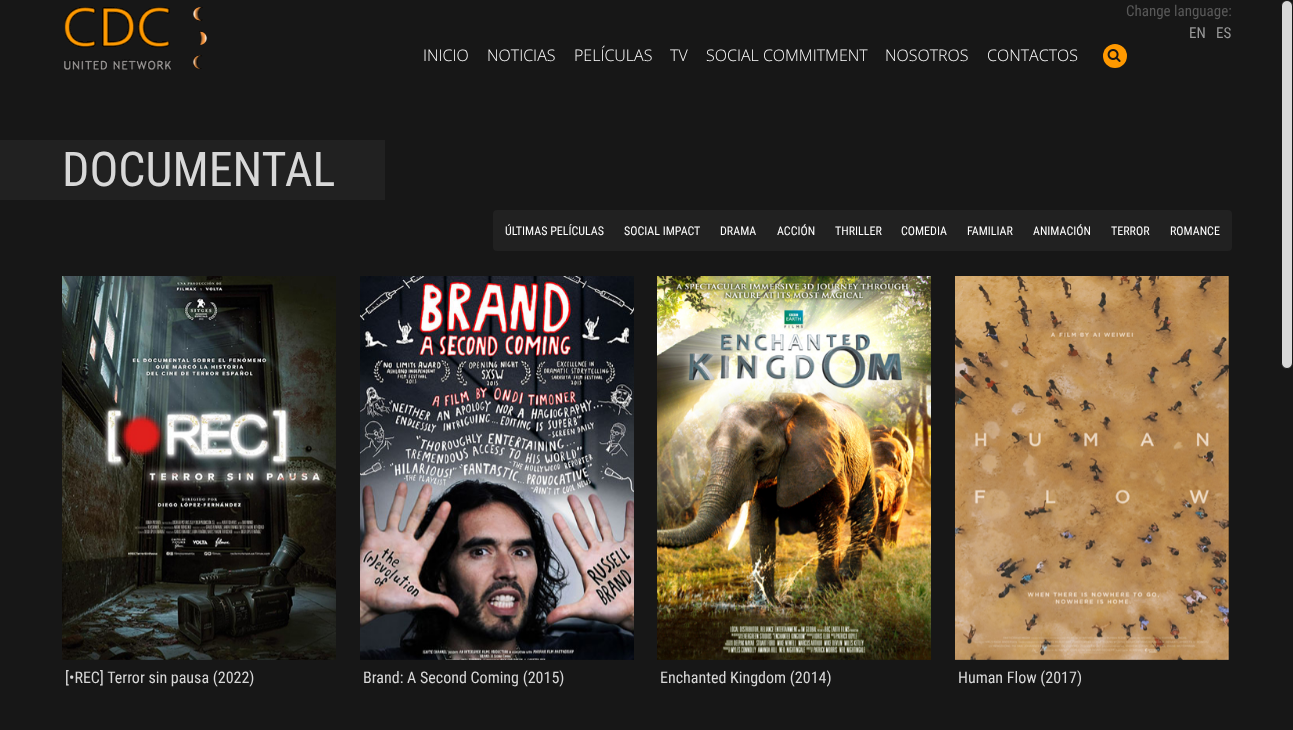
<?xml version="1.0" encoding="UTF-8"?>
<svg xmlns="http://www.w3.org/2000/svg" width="1293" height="730">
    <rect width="100%" height="100%" fill="#171717"/>
    <image x="64" y="7" width="144" height="63" href="img_01.png"/>
    <text x="423" y="61" font-family="Open Sans" font-size="16" font-weight="300" fill="#FFFFFF">INICIO</text>
    <text x="487" y="61" font-family="Open Sans" font-size="16" font-weight="300" fill="#FFFFFF">NOTICIAS</text>
    <text x="574" y="61" font-family="Open Sans" font-size="16" font-weight="300" fill="#FFFFFF">PELÍCULAS</text>
    <text x="670" y="61" font-family="Open Sans" font-size="16" font-weight="300" fill="#FFFFFF">TV</text>
    <text x="706" y="61" font-family="Open Sans" font-size="16" font-weight="300" fill="#FFFFFF">SOCIAL COMMITMENT</text>
    <text x="885" y="61" font-family="Open Sans" font-size="16" font-weight="300" fill="#FFFFFF">NOSOTROS</text>
    <text x="987" y="61" font-family="Open Sans" font-size="16" font-weight="300" fill="#FFFFFF">CONTACTOS</text>
    <circle cx="1115" cy="56" r="12" fill="#FF9900"/>
    <image x="1107" y="49" width="14" height="13" href="img_02.png"/>
    <text x="1126" y="16" font-family="Roboto Condensed" font-size="15" fill="#595959">Change language:</text>
    <text x="1189" y="38" font-family="Roboto Condensed" font-size="15" fill="#999999">EN</text>
    <text x="1216" y="38" font-family="Roboto Condensed" font-size="15" fill="#999999">ES</text>
    <rect x="0" y="140" width="385" height="60" fill="#212121"/>
    <text x="62" y="186" font-family="Roboto Condensed" font-size="48" fill="#D8D8D8">DOCUMENTAL</text>
    <rect x="493" y="210" width="739" height="41" rx="4" fill="#212121"/>
    <text x="505" y="235" font-family="Roboto Condensed" font-size="12" fill="#FFFFFF">ÚLTIMAS PELÍCULAS</text>
    <text x="624" y="235" font-family="Roboto Condensed" font-size="12" fill="#FFFFFF">SOCIAL IMPACT</text>
    <text x="720" y="235" font-family="Roboto Condensed" font-size="12" fill="#FFFFFF">DRAMA</text>
    <text x="777" y="235" font-family="Roboto Condensed" font-size="12" fill="#FFFFFF">ACCIÓN</text>
    <text x="835" y="235" font-family="Roboto Condensed" font-size="12" fill="#FFFFFF">THRILLER</text>
    <text x="901" y="235" font-family="Roboto Condensed" font-size="12" fill="#FFFFFF">COMEDIA</text>
    <text x="967" y="235" font-family="Roboto Condensed" font-size="12" fill="#FFFFFF">FAMILIAR</text>
    <text x="1033" y="235" font-family="Roboto Condensed" font-size="12" fill="#FFFFFF">ANIMACIÓN</text>
    <text x="1111" y="235" font-family="Roboto Condensed" font-size="12" fill="#FFFFFF">TERROR</text>
    <text x="1170" y="235" font-family="Roboto Condensed" font-size="12" fill="#FFFFFF">ROMANCE</text>
    <image x="62" y="276" width="274" height="384" href="img_03.png"/>
    <text x="65" y="683" font-family="Roboto Condensed" font-size="16" fill="#D8D8D8">[•REC] Terror sin pausa (2022)</text>
    <image x="360" y="276" width="274" height="384" href="img_04.png"/>
    <text x="363" y="683" font-family="Roboto Condensed" font-size="16" fill="#D8D8D8">Brand: A Second Coming (2015)</text>
    <image x="657" y="276" width="274" height="384" href="img_05.png"/>
    <text x="660" y="683" font-family="Roboto Condensed" font-size="16" fill="#D8D8D8">Enchanted Kingdom (2014)</text>
    <image x="955" y="276" width="274" height="384" href="img_06.png"/>
    <text x="958" y="683" font-family="Roboto Condensed" font-size="16" fill="#D8D8D8">Human Flow (2017)</text>
    <rect x="1281.5" y="0.5" width="11" height="368" rx="5.5" fill="#D8D8D8" stroke="#171717"/>
</svg>
